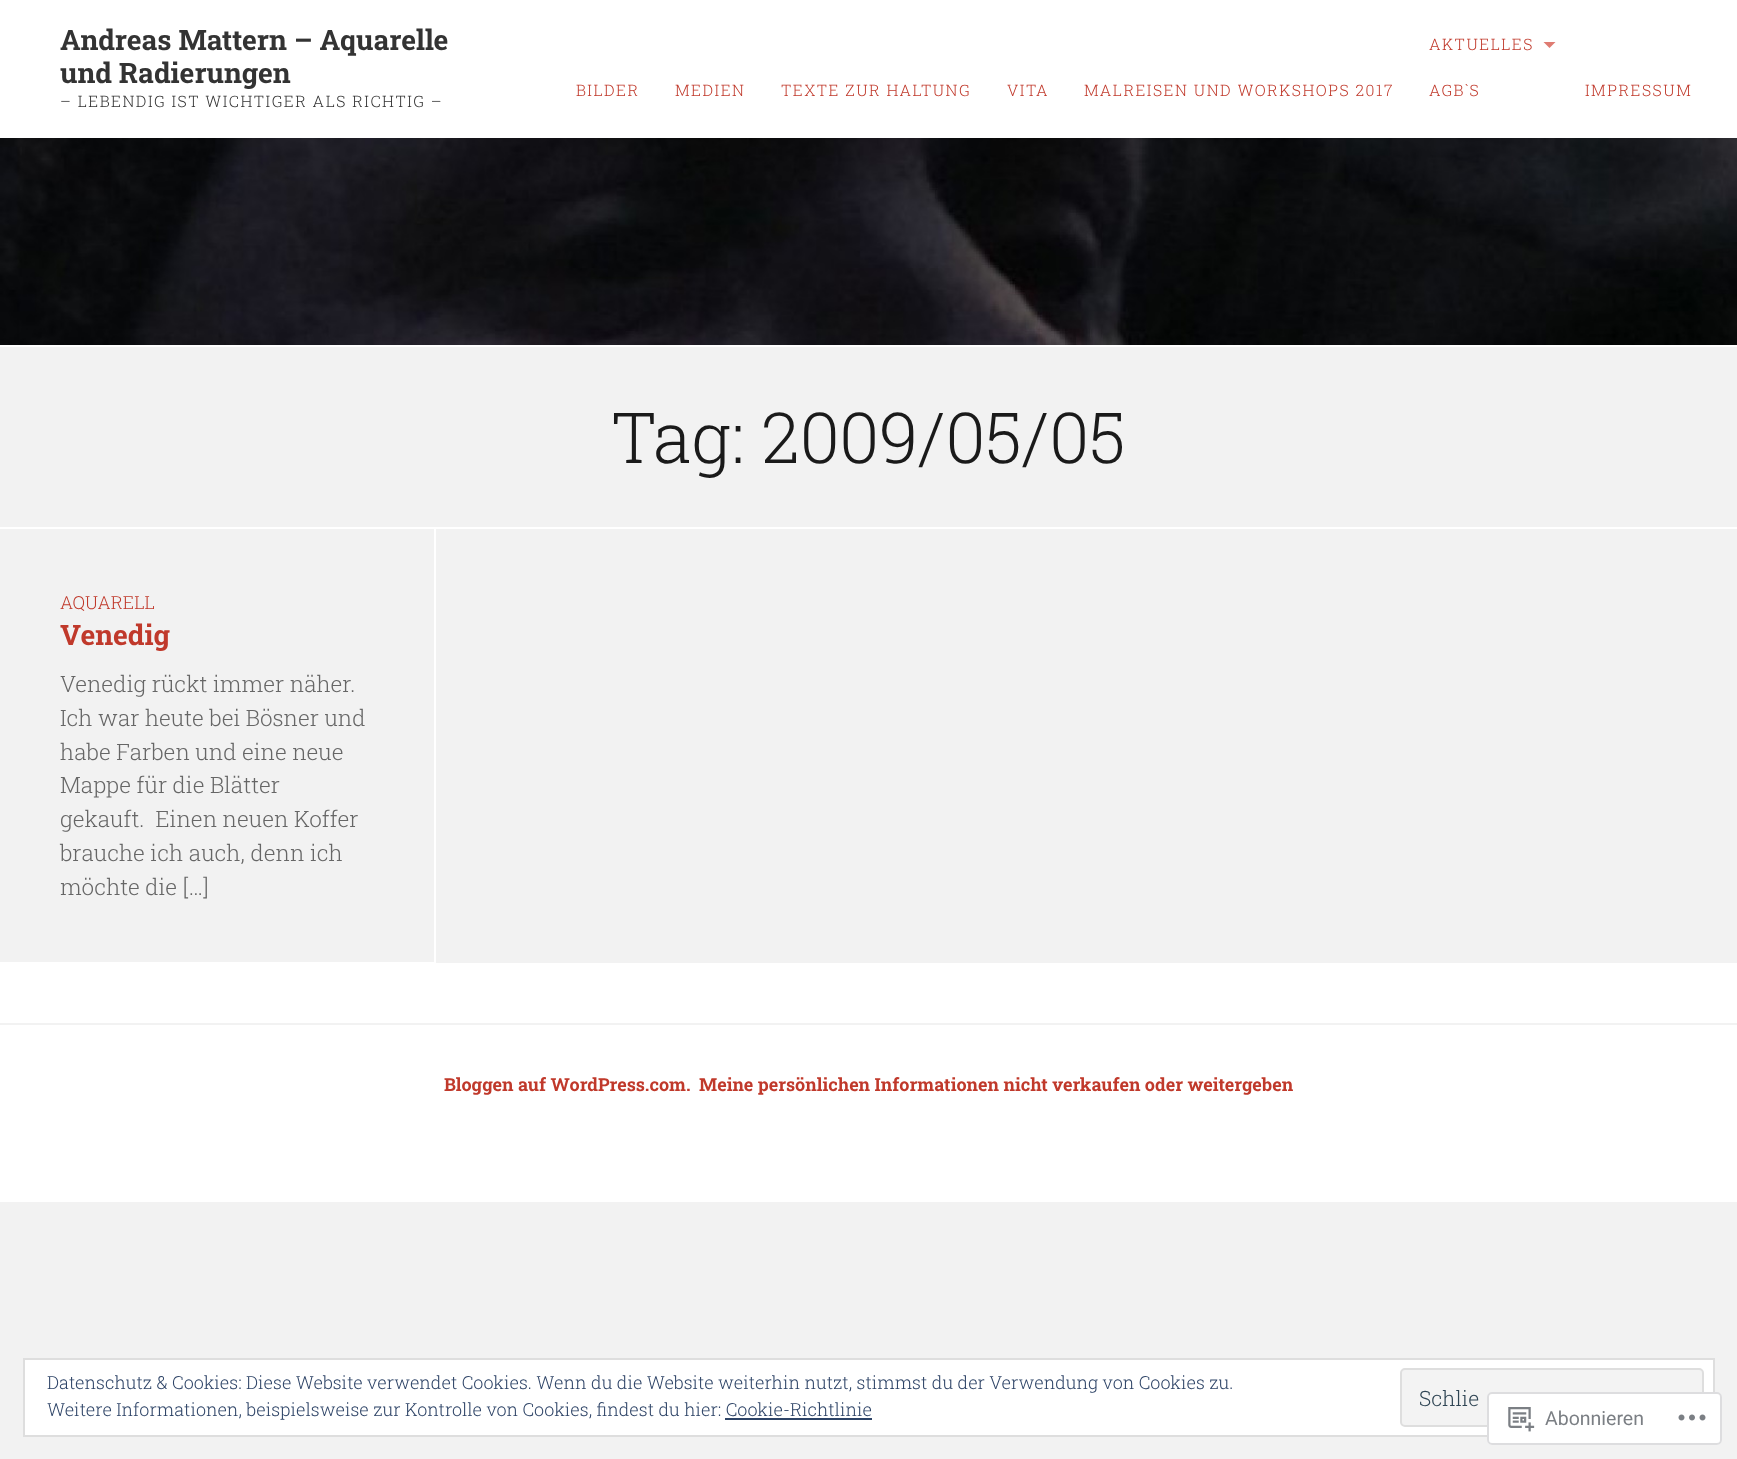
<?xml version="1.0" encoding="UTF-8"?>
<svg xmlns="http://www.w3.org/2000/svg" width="1737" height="1459">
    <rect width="100%" height="100%" fill="#F2F2F2"/>
    <rect x="0" y="0" width="1737" height="138" fill="#FFFFFF"/>
    <text font-family="Roboto Slab" font-size="28.1" font-weight="700" fill="#333333">
        <tspan x="60" y="50">Andreas Mattern – Aquarelle</tspan>
        <tspan x="60" y="83">und Radierungen</tspan>
    </text>
    <text x="60" y="107" font-family="Roboto Slab" font-size="15.75" font-weight="300" letter-spacing="1.5" fill="#333333">– LEBENDIG IST WICHTIGER ALS RICHTIG –</text>
    <text x="576" y="96" font-family="Roboto Slab" font-size="15.75" font-weight="300" letter-spacing="1.5" fill="#C0392B">BILDER</text>
    <text x="675" y="96" font-family="Roboto Slab" font-size="15.75" font-weight="300" letter-spacing="1.5" fill="#C0392B">MEDIEN</text>
    <text x="781" y="96" font-family="Roboto Slab" font-size="15.75" font-weight="300" letter-spacing="1.5" fill="#C0392B">TEXTE ZUR HALTUNG</text>
    <text x="1007" y="96" font-family="Roboto Slab" font-size="15.75" font-weight="300" letter-spacing="1.5" fill="#C0392B">VITA</text>
    <text x="1084" y="96" font-family="Roboto Slab" font-size="15.75" font-weight="300" letter-spacing="1.5" fill="#C0392B">MALREISEN UND WORKSHOPS 2017</text>
    <text x="1429" y="50" font-family="Roboto Slab" font-size="15.75" font-weight="300" letter-spacing="1.5" fill="#C0392B">AKTUELLES</text>
    <path d="M 1543.5 42 H 1555.5 L 1549.5 48 Z" fill="#DF7C72"/>
    <text x="1429" y="96" font-family="Roboto Slab" font-size="15.75" font-weight="300" letter-spacing="1.5" fill="#C0392B">AGB`S</text>
    <text x="1585" y="96" font-family="Roboto Slab" font-size="15.75" font-weight="300" letter-spacing="1.5" fill="#C0392B">IMPRESSUM</text>
    <rect x="0" y="345" width="1737" height="2" fill="#FFFFFF"/>
    <image x="0" y="138" width="1737" height="207" href="img_01.png"/>
    <text x="611" y="463" font-family="Roboto Slab" font-size="70.25" font-weight="300" fill="#1A1A1A">Tag: 2009/05/05</text>
    <rect x="0" y="527" width="1737" height="2" fill="#FFFFFF"/>
    <rect x="434" y="528" width="2" height="435" fill="#FFFFFF"/>
    <rect x="0" y="962" width="435" height="1" fill="#FFFFFF"/>
    <text x="60" y="609" font-family="Roboto Slab" font-size="18" font-weight="300" fill="#C0392B">AQUARELL</text>
    <text x="60" y="645" font-family="Roboto Slab" font-size="28.1" font-weight="700" fill="#C0392B">Venedig</text>
    <text font-family="Roboto Slab" font-size="22.5" font-weight="300" fill="#666666" xml:space="preserve"><tspan x="60" y="692">Venedig rückt immer näher.</tspan><tspan x="60" y="726">Ich war heute bei Bösner und</tspan><tspan x="60" y="760">habe Farben und eine neue</tspan><tspan x="60" y="793">Mappe für die Blätter</tspan><tspan x="60" y="827">gekauft.  Einen neuen Koffer</tspan><tspan x="60" y="861">brauche ich auch, denn ich</tspan><tspan x="60" y="895">möchte die […]</tspan></text>
    <rect x="0" y="963" width="1737" height="239" fill="#FFFFFF"/>
    <rect x="0" y="1023" width="1737" height="2" fill="#F2F2F2"/>
    <text x="444" y="1091" font-family="Roboto Slab" font-size="18" font-weight="700" fill="#C0392B">Bloggen auf WordPress.com.</text>
    <text x="699" y="1091" font-family="Roboto Slab" font-size="18" font-weight="700" fill="#C0392B">Meine persönlichen Informationen nicht verkaufen oder weitergeben</text>
    <rect x="24" y="1359" width="1690" height="77" fill="#FFFFFF" stroke="#DEDEDE" stroke-width="2"/>
    <text x="47" y="1389" font-family="Roboto Slab" font-size="18" font-weight="300" fill="#2E4467">Datenschutz &amp; Cookies: Diese Website verwendet Cookies. Wenn du die Website weiterhin nutzt, stimmst du der Verwendung von Cookies zu.</text>
    <rect x="1401" y="1369" width="302" height="57" rx="4" fill="#F3F3F3" stroke="#DEDEDE" stroke-width="2"/>
    <text x="1419" y="1406" font-family="Roboto Slab" font-size="21" font-weight="300" fill="#2E4453">Schlie</text>
    <text x="47" y="1416" font-family="Roboto Slab" font-size="18" font-weight="300" fill="#2E4467">Weitere Informationen, beispielsweise zur Kontrolle von Cookies, findest du hier: Cookie-Richtlinie</text>
    <rect x="725" y="1418" width="147" height="2" fill="#2E4467"/>
    <rect x="1487" y="1392" width="235" height="53" rx="5" fill="#FFFFFF" fill-opacity="0.98"/>
    <rect x="1488" y="1393" width="233" height="51" rx="4" fill="none" stroke="#DCDCDE" stroke-opacity="0.98" stroke-width="2"/>
    <image x="1508" y="1407" width="27" height="25" href="img_02.png"/>
    <text x="1545" y="1425" font-family="Roboto" font-size="19.5" fill="#7B7F84">Abonnieren</text>
    <image x="1678" y="1414" width="28" height="7" href="img_03.png"/>
</svg>
